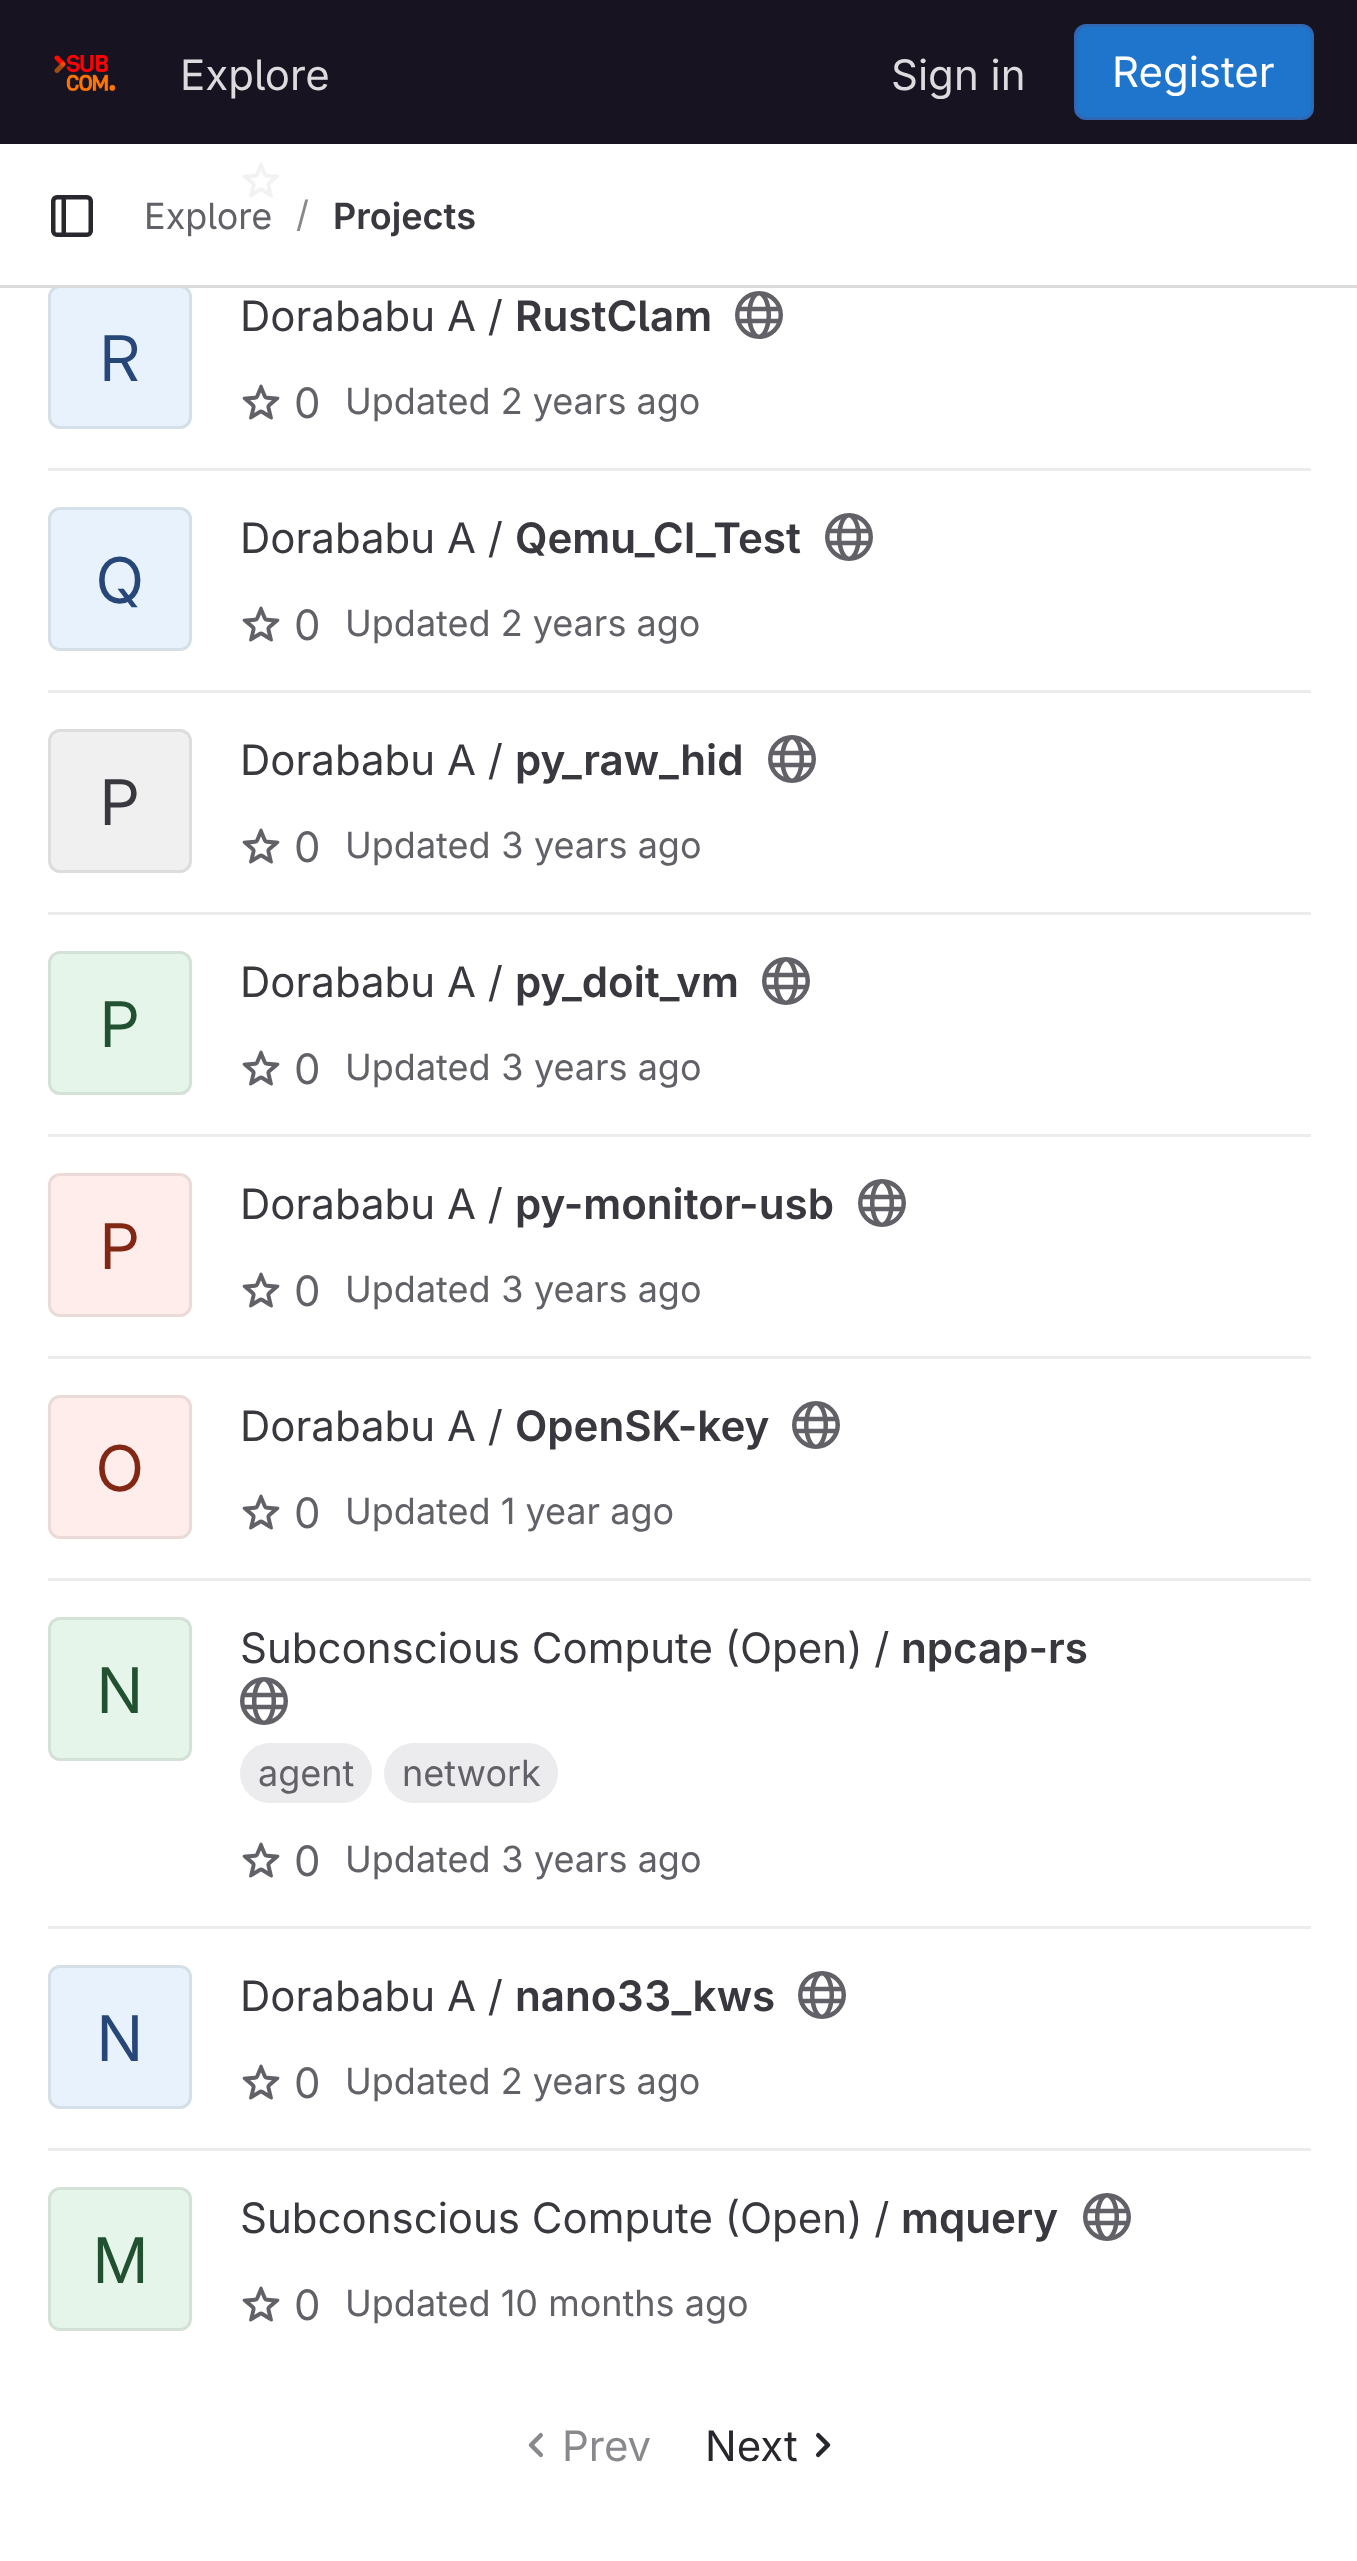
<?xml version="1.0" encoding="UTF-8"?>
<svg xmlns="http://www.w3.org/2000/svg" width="1357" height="2561">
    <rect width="100%" height="100%" fill="#FFFFFF"/>
    <rect x="0" y="0" width="1357" height="144" fill="#171321"/>
    <image x="54" y="54" width="62" height="37" href="img_01.png"/>
    <text x="180" y="90" font-family="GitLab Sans" font-size="42" fill="#DCDCDE">Explore</text>
    <text x="891" y="90" font-family="GitLab Sans" font-size="42" fill="#DCDCDE">Sign in</text>
    <rect x="1075.5" y="25.5" width="237" height="93" rx="10.5" fill="#1F75CB" stroke="#2F68B4" stroke-width="3"/>
    <text x="1112" y="87" font-family="GitLab Sans" font-size="42" fill="#FFFFFF">Register</text>
    <rect x="48" y="246" width="1263" height="3" fill="#ECECEF"/>
    <image x="242" y="162" width="38" height="36" href="img_03.png"/>
    <rect x="48" y="162" width="1263" height="87" fill="#FFFFFF" fill-opacity="0.92"/>
    <rect x="48" y="285" width="144" height="144" rx="12" fill="#E7F2FC"/>
    <rect x="49.5" y="286.5" width="141" height="141" rx="10.5" fill="none" stroke="#050506" stroke-opacity="0.08" stroke-width="3"/>
    <rect x="0" y="285" width="1357" height="3" fill="#DCDCDE"/>
    <image x="51" y="195" width="42" height="42" href="img_02.png"/>
    <text x="144" y="229" font-family="GitLab Sans" font-size="36" fill="#626168">Explore</text>
    <text x="296" y="227" font-family="GitLab Sans" font-size="36" fill="#89888D">/</text>
    <text x="333" y="229" font-family="GitLab Sans" font-size="36" font-weight="600" fill="#3A383F">Projects</text>
    <rect x="48" y="468" width="1263" height="3" fill="#ECECEF"/>
    <text x="100" y="381" font-family="'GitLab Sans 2'" font-size="63" fill="#284779">R</text>
    <text x="240" y="331" font-family="GitLab Sans" font-size="42" fill="#3A383F">Dorababu A /</text>
    <text x="515" y="331" font-family="GitLab Sans" font-size="42" font-weight="600" fill="#3A383F">RustClam</text>
    <image x="735" y="291" width="48" height="48" href="img_04.png"/>
    <image x="242" y="384" width="38" height="36" href="img_03.png"/>
    <text x="294" y="418" font-family="GitLab Sans" font-size="42" fill="#626168">0</text>
    <text x="345" y="414" font-family="GitLab Sans" font-size="36" fill="#626168">Updated 2 years ago</text>
    <rect x="48" y="690" width="1263" height="3" fill="#ECECEF"/>
    <rect x="48" y="507" width="144" height="144" rx="12" fill="#E7F2FC"/>
    <rect x="49.5" y="508.5" width="141" height="141" rx="10.5" fill="none" stroke="#050506" stroke-opacity="0.08" stroke-width="3"/>
    <text x="96" y="603" font-family="'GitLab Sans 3'" font-size="63" fill="#284779">Q</text>
    <text x="240" y="553" font-family="GitLab Sans" font-size="42" fill="#3A383F">Dorababu A /</text>
    <text x="515" y="553" font-family="GitLab Sans" font-size="42" font-weight="600" fill="#3A383F">Qemu_CI_Test</text>
    <image x="825" y="513" width="48" height="48" href="img_05.png"/>
    <image x="242" y="606" width="38" height="36" href="img_03.png"/>
    <text x="294" y="640" font-family="GitLab Sans" font-size="42" fill="#626168">0</text>
    <text x="345" y="636" font-family="GitLab Sans" font-size="36" fill="#626168">Updated 2 years ago</text>
    <rect x="48" y="912" width="1263" height="3" fill="#ECECEF"/>
    <rect x="48" y="729" width="144" height="144" rx="12" fill="#F0F0F1"/>
    <rect x="49.5" y="730.5" width="141" height="141" rx="10.5" fill="none" stroke="#050506" stroke-opacity="0.08" stroke-width="3"/>
    <text x="100" y="825" font-family="'GitLab Sans 3'" font-size="63" fill="#3A383F">P</text>
    <text x="240" y="775" font-family="GitLab Sans" font-size="42" fill="#3A383F">Dorababu A /</text>
    <text x="515" y="775" font-family="GitLab Sans" font-size="42" font-weight="600" fill="#3A383F">py_raw_hid</text>
    <image x="768" y="735" width="48" height="48" href="img_05.png"/>
    <image x="242" y="828" width="38" height="36" href="img_06.png"/>
    <text x="294" y="862" font-family="GitLab Sans" font-size="42" fill="#626168">0</text>
    <text x="345" y="858" font-family="GitLab Sans" font-size="36" fill="#626168">Updated 3 years ago</text>
    <rect x="48" y="1134" width="1263" height="3" fill="#ECECEF"/>
    <rect x="48" y="951" width="144" height="144" rx="12" fill="#E5F5EA"/>
    <rect x="49.5" y="952.5" width="141" height="141" rx="10.5" fill="none" stroke="#050506" stroke-opacity="0.08" stroke-width="3"/>
    <text x="100" y="1047" font-family="'GitLab Sans 3'" font-size="63" fill="#225131">P</text>
    <text x="240" y="997" font-family="GitLab Sans" font-size="42" fill="#3A383F">Dorababu A /</text>
    <text x="515" y="997" font-family="GitLab Sans" font-size="42" font-weight="600" fill="#3A383F">py_doit_vm</text>
    <image x="762" y="957" width="48" height="48" href="img_07.png"/>
    <image x="242" y="1050" width="38" height="36" href="img_03.png"/>
    <text x="294" y="1084" font-family="GitLab Sans" font-size="42" fill="#626168">0</text>
    <text x="345" y="1080" font-family="GitLab Sans" font-size="36" fill="#626168">Updated 3 years ago</text>
    <rect x="48" y="1356" width="1263" height="3" fill="#ECECEF"/>
    <rect x="48" y="1173" width="144" height="144" rx="12" fill="#FEEDEB"/>
    <rect x="49.5" y="1174.5" width="141" height="141" rx="10.5" fill="none" stroke="#050506" stroke-opacity="0.08" stroke-width="3"/>
    <text x="100" y="1269" font-family="'GitLab Sans 3'" font-size="63" fill="#812713">P</text>
    <text x="240" y="1219" font-family="GitLab Sans" font-size="42" fill="#3A383F">Dorababu A /</text>
    <text x="515" y="1219" font-family="GitLab Sans" font-size="42" font-weight="600" fill="#3A383F">py-monitor-usb</text>
    <image x="858" y="1179" width="48" height="48" href="img_08.png"/>
    <image x="242" y="1272" width="38" height="36" href="img_03.png"/>
    <text x="294" y="1306" font-family="GitLab Sans" font-size="42" fill="#626168">0</text>
    <text x="345" y="1302" font-family="GitLab Sans" font-size="36" fill="#626168">Updated 3 years ago</text>
    <rect x="48" y="1578" width="1263" height="3" fill="#ECECEF"/>
    <rect x="48" y="1395" width="144" height="144" rx="12" fill="#FEEDEB"/>
    <rect x="49.5" y="1396.5" width="141" height="141" rx="10.5" fill="none" stroke="#050506" stroke-opacity="0.08" stroke-width="3"/>
    <text x="96" y="1491" font-family="'GitLab Sans 3'" font-size="63" fill="#812713">O</text>
    <text x="240" y="1441" font-family="GitLab Sans" font-size="42" fill="#3A383F">Dorababu A /</text>
    <text x="515" y="1441" font-family="GitLab Sans" font-size="42" font-weight="600" fill="#3A383F">OpenSK-key</text>
    <image x="792" y="1401" width="48" height="48" href="img_08.png"/>
    <image x="242" y="1494" width="38" height="36" href="img_03.png"/>
    <text x="294" y="1528" font-family="GitLab Sans" font-size="42" fill="#626168">0</text>
    <text x="345" y="1524" font-family="GitLab Sans" font-size="36" fill="#626168">Updated 1 year ago</text>
    <rect x="48" y="1926" width="1263" height="3" fill="#ECECEF"/>
    <rect x="48" y="1617" width="144" height="144" rx="12" fill="#E5F5EA"/>
    <rect x="49.5" y="1618.5" width="141" height="141" rx="10.5" fill="none" stroke="#050506" stroke-opacity="0.08" stroke-width="3"/>
    <text x="97" y="1713" font-family="'GitLab Sans 3'" font-size="63" fill="#225131">N</text>
    <text x="240" y="1663" font-family="GitLab Sans" font-size="42" fill="#3A383F">Subconscious Compute (Open) /</text>
    <text x="901" y="1663" font-family="GitLab Sans" font-size="42" font-weight="600" fill="#3A383F">npcap-rs</text>
    <image x="240" y="1677" width="48" height="48" href="img_09.png"/>
    <rect x="240" y="1743" width="132" height="60" rx="30" fill="#ECECEF"/>
    <text x="258" y="1786" font-family="GitLab Sans" font-size="36" fill="#626168">agent</text>
    <rect x="384" y="1743" width="174" height="60" rx="30" fill="#ECECEF"/>
    <text x="402" y="1786" font-family="GitLab Sans" font-size="36" fill="#626168">network</text>
    <image x="242" y="1842" width="38" height="36" href="img_10.png"/>
    <text x="294" y="1876" font-family="GitLab Sans" font-size="42" fill="#626168">0</text>
    <text x="345" y="1872" font-family="GitLab Sans" font-size="36" fill="#626168">Updated 3 years ago</text>
    <rect x="48" y="2148" width="1263" height="3" fill="#ECECEF"/>
    <rect x="48" y="1965" width="144" height="144" rx="12" fill="#E7F2FC"/>
    <rect x="49.5" y="1966.5" width="141" height="141" rx="10.5" fill="none" stroke="#050506" stroke-opacity="0.08" stroke-width="3"/>
    <text x="97" y="2061" font-family="'GitLab Sans 3'" font-size="63" fill="#284779">N</text>
    <text x="240" y="2011" font-family="GitLab Sans" font-size="42" fill="#3A383F">Dorababu A /</text>
    <text x="515" y="2011" font-family="GitLab Sans" font-size="42" font-weight="600" fill="#3A383F">nano33_kws</text>
    <image x="798" y="1971" width="48" height="48" href="img_08.png"/>
    <image x="242" y="2064" width="38" height="36" href="img_03.png"/>
    <text x="294" y="2098" font-family="GitLab Sans" font-size="42" fill="#626168">0</text>
    <text x="345" y="2094" font-family="GitLab Sans" font-size="36" fill="#626168">Updated 2 years ago</text>
    <rect x="48" y="2187" width="144" height="144" rx="12" fill="#E5F5EA"/>
    <rect x="49.5" y="2188.5" width="141" height="141" rx="10.5" fill="none" stroke="#050506" stroke-opacity="0.08" stroke-width="3"/>
    <text x="93" y="2283" font-family="'GitLab Sans 3'" font-size="63" fill="#225131">M</text>
    <text x="240" y="2233" font-family="GitLab Sans" font-size="42" fill="#3A383F">Subconscious Compute (Open) /</text>
    <text x="901" y="2233" font-family="GitLab Sans" font-size="42" font-weight="600" fill="#3A383F">mquery</text>
    <image x="1083" y="2193" width="48" height="48" href="img_08.png"/>
    <image x="242" y="2286" width="38" height="36" href="img_03.png"/>
    <text x="294" y="2320" font-family="GitLab Sans" font-size="42" fill="#626168">0</text>
    <text x="345" y="2316" font-family="GitLab Sans" font-size="36" fill="#626168">Updated 10 months ago</text>
    <image x="528" y="2432" width="16" height="26" href="img_11.png"/>
    <text x="562" y="2461" font-family="GitLab Sans" font-size="42" fill="#89888D">Prev</text>
    <text x="705" y="2461" font-family="GitLab Sans" font-size="42" fill="#28272D">Next</text>
    <image x="815" y="2432" width="16" height="26" href="img_12.png"/>
</svg>
